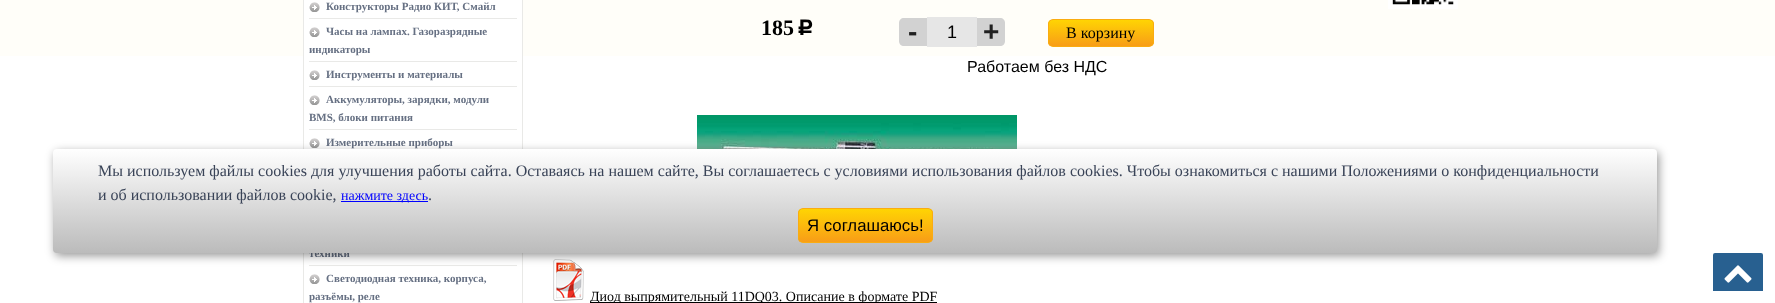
<?xml version="1.0" encoding="UTF-8"?>
<svg xmlns="http://www.w3.org/2000/svg" width="1775" height="303">
    <defs>
        <clipPath id="clip1"><rect x="1048" y="19" width="106" height="28" rx="5"/></clipPath>
        <linearGradient id="g1" gradientUnits="userSpaceOnUse" x1="1101" y1="20" x2="1101" y2="46"><stop offset="0" stop-color="#FFD403"/><stop offset="1" stop-color="#F89D17"/></linearGradient>
        <filter id="blur1" x="-50%" y="-200%" width="200%" height="500%"><feGaussianBlur stdDeviation="5"/></filter>
        <linearGradient id="g2" gradientUnits="userSpaceOnUse" x1="855" y1="149" x2="855" y2="253"><stop offset="0" stop-color="#FFFFFF"/><stop offset="1" stop-color="#BBBBBB"/></linearGradient>
        <clipPath id="clip2"><rect x="798" y="208" width="135" height="35" rx="5"/></clipPath>
        <linearGradient id="g3" gradientUnits="userSpaceOnUse" x1="866" y1="209" x2="866" y2="242"><stop offset="0" stop-color="#FFD403"/><stop offset="1" stop-color="#F89D17"/></linearGradient>
    </defs>
    <rect width="100%" height="100%" fill="#FFFFFF"/>
    <rect x="0" y="0" width="1775" height="56" fill="#FFFEF9"/>
    <rect x="304" y="0" width="218" height="56" fill="#FFFFFF"/>
    <rect x="303.5" y="-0.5" width="219" height="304" fill="none" stroke="#E9E9E7"/>
    <rect x="309" y="18" width="208" height="1" fill="#E9E9E7"/>
    <image x="309" y="2" width="11" height="10" href="img_01.png"/>
    <text x="326" y="10" font-family="Liberation Serif" font-size="11" font-weight="700" fill="#667083">Конструкторы Радио КИТ, Смайл</text>
    <rect x="309" y="61" width="208" height="1" fill="#E9E9E7"/>
    <image x="309" y="27" width="11" height="10" href="img_01.png"/>
    <text x="326" y="35" font-family="Liberation Serif" font-size="11" font-weight="700" fill="#667083">Часы на лампах. Газоразрядные</text>
    <text x="309" y="53" font-family="Liberation Serif" font-size="11" font-weight="700" fill="#667083">индикаторы</text>
    <rect x="309" y="86" width="208" height="1" fill="#E9E9E7"/>
    <image x="309" y="70" width="11" height="10" href="img_01.png"/>
    <text x="326" y="78" font-family="Liberation Serif" font-size="11" font-weight="700" fill="#667083">Инструменты и материалы</text>
    <rect x="309" y="129" width="208" height="1" fill="#E9E9E7"/>
    <image x="309" y="95" width="11" height="10" href="img_01.png"/>
    <text x="326" y="103" font-family="Liberation Serif" font-size="11" font-weight="700" fill="#667083">Аккумуляторы, зарядки, модули</text>
    <text x="309" y="121" font-family="Liberation Serif" font-size="11" font-weight="700" fill="#667083">BMS, блоки питания</text>
    <image x="309" y="138" width="11" height="10" href="img_01.png"/>
    <text x="326" y="146" font-family="Liberation Serif" font-size="11" font-weight="700" fill="#667083">Измерительные приборы</text>
    <rect x="309" y="265" width="208" height="1" fill="#E9E9E7"/>
    <text x="309" y="257" font-family="Liberation Serif" font-size="11" font-weight="700" fill="#667083">техники</text>
    <image x="309" y="274" width="11" height="10" href="img_01.png"/>
    <text x="326" y="282" font-family="Liberation Serif" font-size="11" font-weight="700" fill="#667083">Светодиодная техника, корпуса,</text>
    <text x="309" y="300" font-family="Liberation Serif" font-size="11" font-weight="700" fill="#667083">разъёмы, реле</text>
    <image x="1388" y="0" width="70" height="9" href="img_02.png"/>
    <text x="761" y="35" font-family="Liberation Serif" font-size="22" font-weight="700" fill="#000000">185</text>
    <text x="797" y="35" font-family="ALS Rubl" font-size="22" fill="#000000">c</text>
    <path d="M 904 18 H 927 V 46 H 904 C 901 46 899 44 899 41 V 23 C 899 20 901 18 904 18 Z" fill="#D2D2D2"/>
    <text x="908" y="41" font-family="Liberation Sans" font-size="28" font-weight="700" fill="#202020">-</text>
    <rect x="927" y="17" width="50" height="30" fill="#E6E6E6"/>
    <text x="947" y="38" font-family="Liberation Sans" font-size="18" fill="#000000">1</text>
    <path d="M 977 18 H 1000 C 1003 18 1005 20 1005 23 V 41 C 1005 44 1003 46 1000 46 H 977 Z" fill="#D2D2D2"/>
    <text x="983" y="41" font-family="Liberation Sans" font-size="28" font-weight="700" fill="#202020">+</text>
    <g clip-path="url(#clip1)">
        <rect x="1048" y="20" width="106" height="26" fill="url(#g1)"/>
    </g>
    <rect x="1048.5" y="19.5" width="105" height="27" rx="4.5" fill="none" stroke="#FAAC11"/>
    <text x="1066" y="38" font-family="Liberation Serif" font-size="16" fill="#000000">В корзину</text>
    <text x="967" y="72" font-family="Liberation Sans" font-size="16" fill="#000000">Работаем без НДС</text>
    <image x="697" y="115" width="320" height="34" href="img_03.png"/>
    <image x="553" y="259" width="31" height="42" href="img_04.png"/>
    <rect x="590" y="302" width="347" height="1" fill="#000000"/>
    <text x="590" y="301" font-family="Liberation Serif" font-size="14" fill="#000000">Диод выпрямительный 11DQ03. Описание в формате PDF</text>
    <path d="M 1715 252 H 1761 C 1762.5 252 1764 253.5 1764 255 V 292 H 1712 V 255 C 1712 253.5 1713.5 252 1715 252 Z" fill="#286090" stroke="#FFFFFF" stroke-width="2"/>
    <image x="1724" y="265" width="28" height="18" href="img_05.png"/>
    <rect x="55" y="152" width="1604" height="104" rx="4" fill="#000000" fill-opacity="0.4" filter="url(#blur1)"/>
    <rect x="53" y="149" width="1604" height="104" rx="4" fill="url(#g2)"/>
    <text font-family="Liberation Serif" font-size="16" fill="#394357">
        <tspan x="98" y="176">Мы используем файлы cookies для улучшения работы сайта. Оставаясь на нашем сайте, Bы соглашаетесь с условиями использования файлов cookies. Чтобы ознакомиться с нашими Положениями о конфиденциальности</tspan>
        <tspan x="98" y="200">и об использовании файлов cookie,</tspan>
    </text>
    <rect x="341" y="201" width="87" height="1" fill="#0000FF"/>
    <text x="341" y="200" font-family="Liberation Serif" font-size="14" fill="#0000FF">нажмите здесь</text>
    <text x="428" y="200" font-family="Liberation Serif" font-size="16" fill="#394357">.</text>
    <g clip-path="url(#clip2)">
        <rect x="798" y="209" width="135" height="33" fill="url(#g3)"/>
    </g>
    <rect x="798.5" y="208.5" width="134" height="34" rx="4.5" fill="none" stroke="#FAAC11"/>
    <text x="807" y="231" font-family="Liberation Sans" font-size="16.75" fill="#000000">Я соглашаюсь!</text>
</svg>
